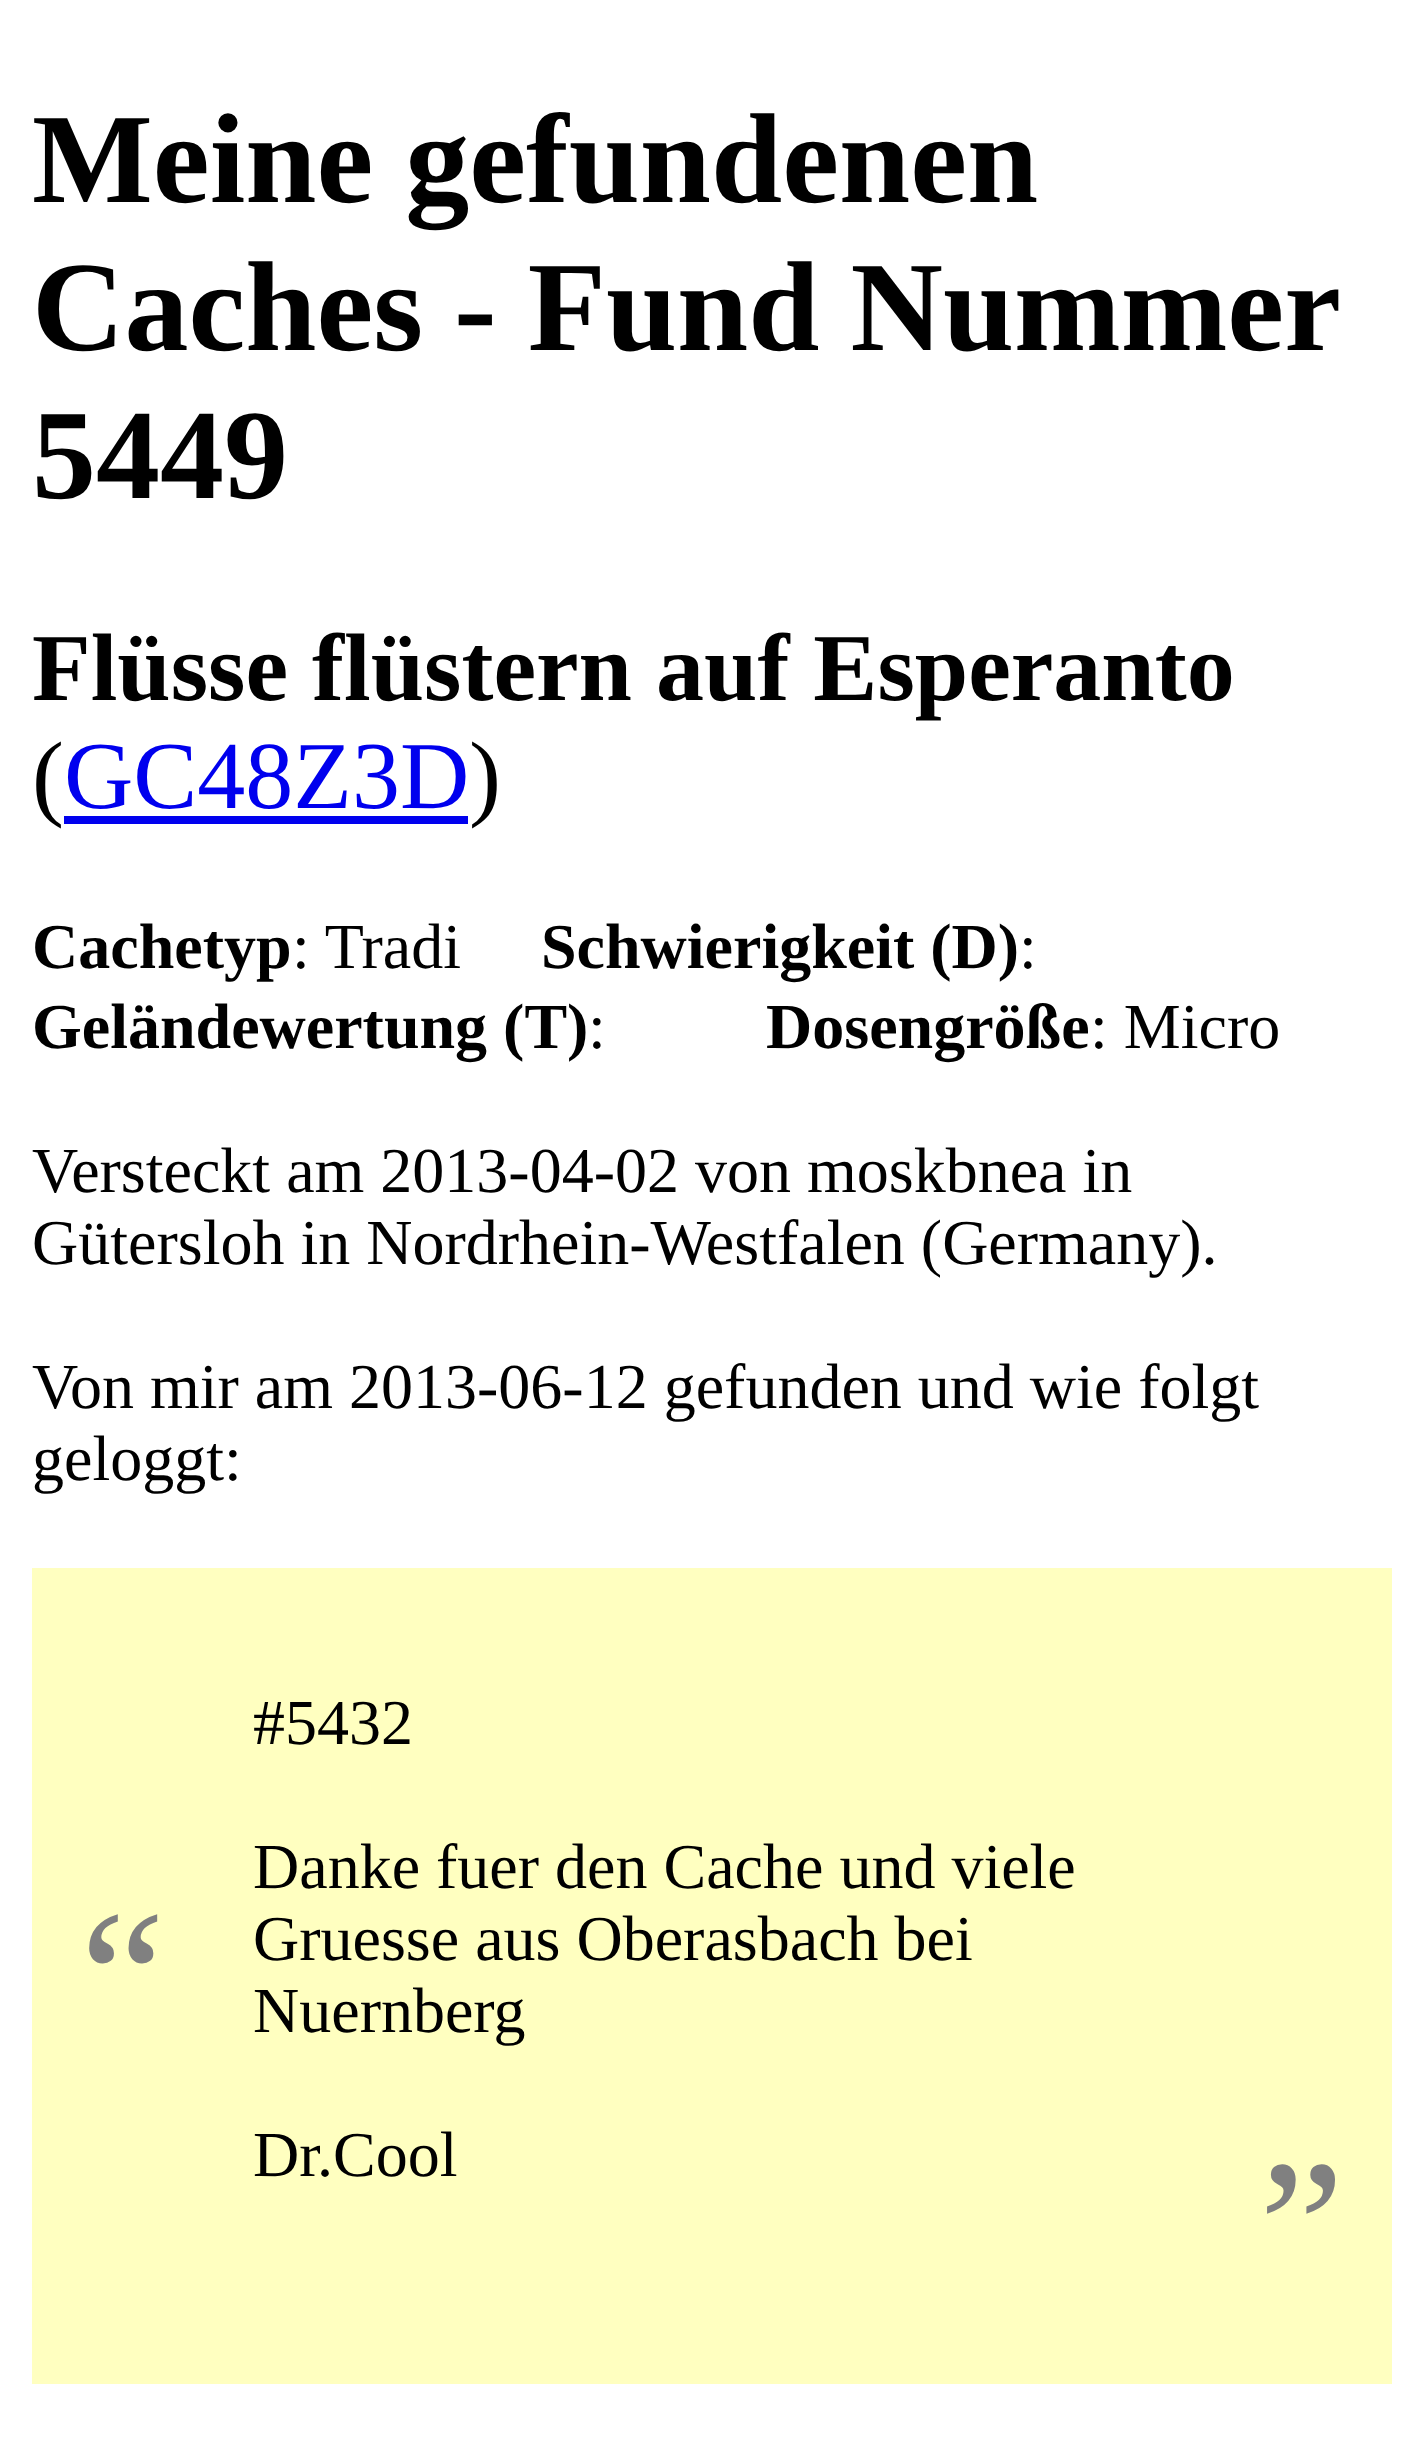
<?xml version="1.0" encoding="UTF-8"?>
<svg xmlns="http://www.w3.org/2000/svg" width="1424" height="2460">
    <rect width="100%" height="100%" fill="#FFFFFF"/>
    <text font-family="Liberation Serif" font-size="128" font-weight="700" fill="#000000">
        <tspan x="32" y="202">Meine gefundenen</tspan>
        <tspan x="32" y="350" word-spacing="-1">Caches - Fund Nummer</tspan>
        <tspan x="32" y="498">5449</tspan>
    </text>
    <text x="32" y="700" font-family="Liberation Serif" font-size="96" font-weight="700" fill="#000000">Flüsse flüstern auf Esperanto</text>
    <text x="32" y="808" font-family="Liberation Serif" font-size="96" fill="#000000">(</text>
    <rect x="64" y="816" width="404" height="8" fill="#0000EE"/>
    <text x="64" y="808" font-family="Liberation Serif" font-size="96" fill="#0000EE">GC48Z3D</text>
    <text x="469" y="808" font-family="Liberation Serif" font-size="96" fill="#000000">)</text>
    <text x="32" y="968" font-family="Liberation Serif" font-size="64" font-weight="700" fill="#000000">Cachetyp</text>
    <text x="292" y="968" font-family="Liberation Serif" font-size="64" fill="#000000">: Tradi</text>
    <text x="541" y="968" font-family="Liberation Serif" font-size="64" font-weight="700" fill="#000000">Schwierigkeit (D)</text>
    <text x="1019" y="968" font-family="Liberation Serif" font-size="64" fill="#000000">:</text>
    <text x="32" y="1048" font-family="Liberation Serif" font-size="64" font-weight="700" fill="#000000">Geländewertung (T)</text>
    <text x="588" y="1048" font-family="Liberation Serif" font-size="64" fill="#000000">:</text>
    <text x="766" y="1048" font-family="Liberation Serif" font-size="64" font-weight="700" fill="#000000">Dosengröße</text>
    <text x="1090" y="1048" font-family="Liberation Serif" font-size="64" fill="#000000">: Micro</text>
    <text font-family="Liberation Serif" font-size="64" fill="#000000">
        <tspan x="32" y="1192">Versteckt am 2013-04-02 von moskbnea in</tspan>
        <tspan x="32" y="1264">Gütersloh in Nordrhein-Westfalen (Germany).</tspan>
    </text>
    <text font-family="Liberation Serif" font-size="64" fill="#000000">
        <tspan x="32" y="1408">Von mir am 2013-06-12 gefunden und wie folgt</tspan>
        <tspan x="32" y="1480">geloggt:</tspan>
    </text>
    <rect x="32" y="1568" width="1360" height="816" fill="#FFFFC0"/>
    <text x="80" y="2042" font-family="Liberation Serif" font-size="192" fill="#808080">“</text>
    <text x="253" y="1744" font-family="Liberation Serif" font-size="64" fill="#000000">#5432</text>
    <text font-family="Liberation Serif" font-size="64" fill="#000000">
        <tspan x="253" y="1888">Danke fuer den Cache und viele</tspan>
        <tspan x="253" y="1960">Gruesse aus Oberasbach bei</tspan>
        <tspan x="253" y="2032">Nuernberg</tspan>
    </text>
    <text x="253" y="2176" font-family="Liberation Serif" font-size="64" fill="#000000">Dr.Cool</text>
    <text x="1259" y="2292" font-family="Liberation Serif" font-size="192" fill="#808080">”</text>
</svg>
